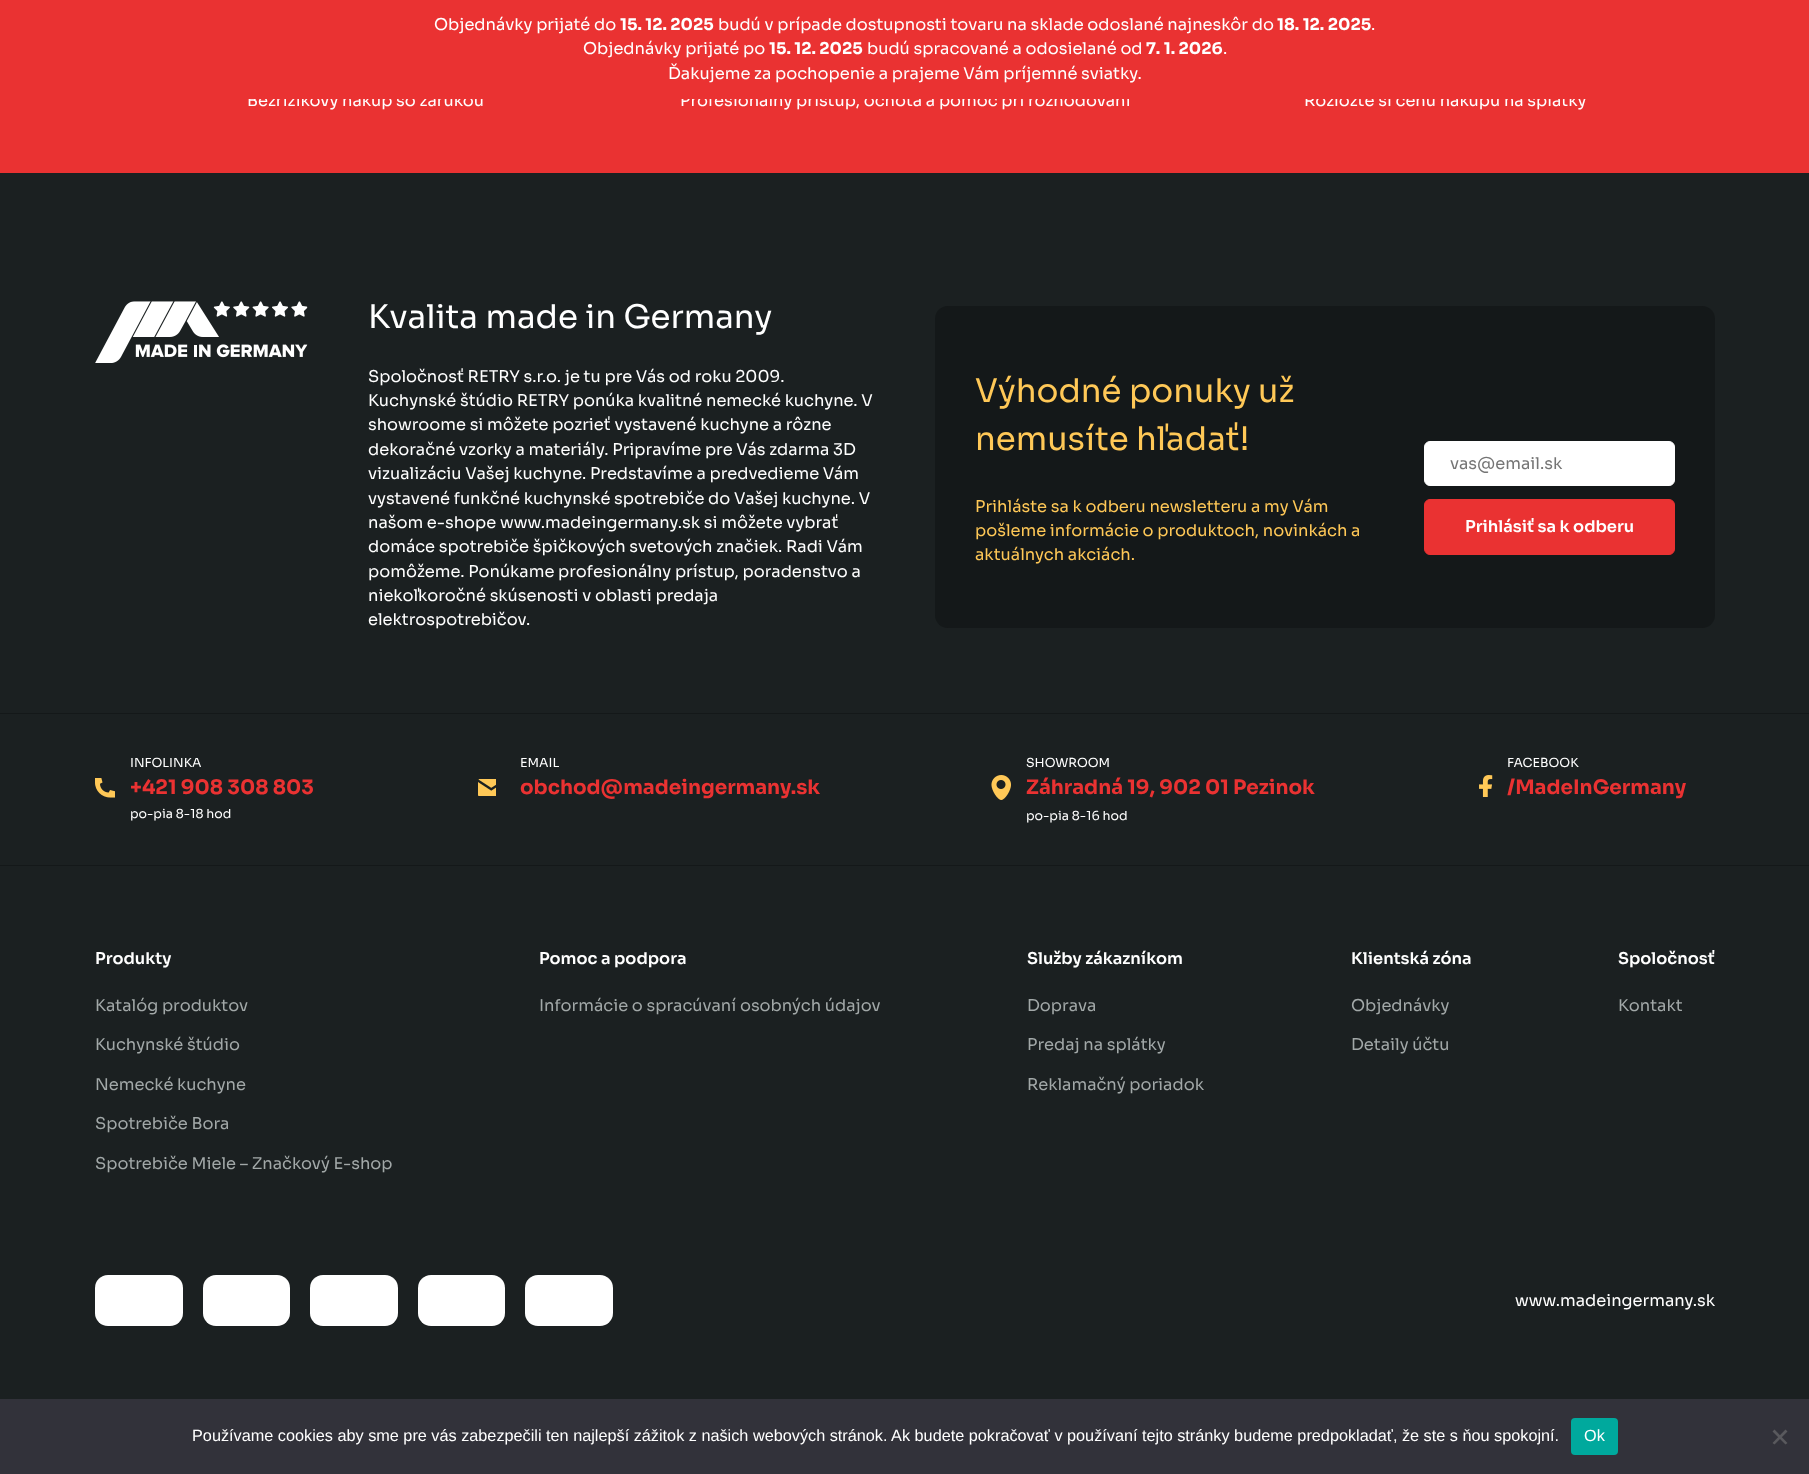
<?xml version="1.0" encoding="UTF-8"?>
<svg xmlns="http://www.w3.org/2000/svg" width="1809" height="1474">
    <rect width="100%" height="100%" fill="#EA3232"/>
    <text x="247" y="106" font-family="Sora" font-size="16.25" fill="#FFFFFF">Bezrizikový nákup so zárukou</text>
    <text x="680" y="106" font-family="Sora" font-size="16.25" fill="#FFFFFF">Profesionálny prístup, ochota a pomoc pri rozhodovaní</text>
    <text x="1304" y="106" font-family="Sora" font-size="16.25" fill="#FFFFFF">Rozložte si cenu nákupu na splátky</text>
    <rect x="248" y="92" width="1338" height="7" fill="#EA3232"/>
    <text x="434" y="30" font-family="Sora" font-size="16.25" fill="#FFFFFF">Objednávky prijaté do</text>
    <text x="620" y="30" font-family="Sora" font-size="16.25" font-weight="700" fill="#FFFFFF">15. 12. 2025</text>
    <text x="718" y="30" font-family="Sora" font-size="16.25" fill="#FFFFFF">budú v prípade dostupnosti tovaru na sklade odoslané najneskôr do</text>
    <text x="1277" y="30" font-family="Sora" font-size="16.25" font-weight="700" fill="#FFFFFF">18. 12. 2025</text>
    <text x="1371" y="30" font-family="Sora" font-size="16.25" fill="#FFFFFF">.</text>
    <text x="583" y="54" font-family="Sora" font-size="16.25" fill="#FFFFFF">Objednávky prijaté po</text>
    <text x="769" y="54" font-family="Sora" font-size="16.25" font-weight="700" fill="#FFFFFF">15. 12. 2025</text>
    <text x="867" y="54" font-family="Sora" font-size="16.25" fill="#FFFFFF">budú spracované a odosielané od</text>
    <text x="1146" y="54" font-family="Sora" font-size="16.25" font-weight="700" fill="#FFFFFF">7. 1. 2026</text>
    <text x="1223" y="54" font-family="Sora" font-size="16.25" fill="#FFFFFF">.</text>
    <text x="668" y="79" font-family="Sora" font-size="16.25" fill="#FFFFFF">Ďakujeme za pochopenie a prajeme Vám príjemné sviatky.</text>
    <rect x="0" y="173" width="1809" height="1226" fill="#1B2021"/>
    <image x="95" y="301" width="213" height="62" href="img_01.png"/>
    <text x="368" y="328" font-family="Sora" font-size="32.5" fill="#FFFFFF">Kvalita made in Germany</text>
    <text font-family="Sora" font-size="16.25" fill="#FFFFFF">
        <tspan x="368" y="382">Spoločnosť RETRY s.r.o. je tu pre Vás od roku 2009.</tspan>
        <tspan x="368" y="406">Kuchynské štúdio RETRY ponúka kvalitné nemecké kuchyne. V</tspan>
        <tspan x="368" y="430">showroome si môžete pozrieť vystavené kuchyne a rôzne</tspan>
        <tspan x="368" y="455">dekoračné vzorky a materiály. Pripravíme pre Vás zdarma 3D</tspan>
        <tspan x="368" y="479">vizualizáciu Vašej kuchyne. Predstavíme a predvedieme Vám</tspan>
        <tspan x="368" y="504">vystavené funkčné kuchynské spotrebiče do Vašej kuchyne. V</tspan>
        <tspan x="368" y="528">našom e-shope www.madeingermany.sk si môžete vybrať</tspan>
        <tspan x="368" y="552">domáce spotrebiče špičkových svetových značiek. Radi Vám</tspan>
        <tspan x="368" y="577">pomôžeme. Ponúkame profesionálny prístup, poradenstvo a</tspan>
        <tspan x="368" y="601">niekoľkoročné skúsenosti v oblasti predaja</tspan>
        <tspan x="368" y="625">elektrospotrebičov.</tspan>
    </text>
    <rect x="935" y="306" width="780" height="322" rx="13" fill="#141819"/>
    <text font-family="Sora" font-size="32.5" fill="#FFC857">
        <tspan x="975" y="402">Výhodné ponuky už</tspan>
        <tspan x="975" y="450">nemusíte hľadať!</tspan>
    </text>
    <text font-family="Sora" font-size="16.25" fill="#FFC857">
        <tspan x="975" y="512">Prihláste sa k odberu newsletteru a my Vám</tspan>
        <tspan x="975" y="536">pošleme informácie o produktoch, novinkách a</tspan>
        <tspan x="975" y="560">aktuálnych akciách.</tspan>
    </text>
    <rect x="1424.5" y="441.5" width="250" height="44" rx="5.5" fill="#FFFFFF" stroke="#FFFFFF"/>
    <text x="1450" y="469" font-family="Sora" font-size="16.25" fill="#757575">vas@email.sk</text>
    <rect x="1424.5" y="499.5" width="250" height="55" rx="5.5" fill="#EA3232" stroke="#EA3232"/>
    <text x="1465" y="532" font-family="Sora" font-size="16.25" font-weight="600" fill="#FFFFFF">Prihlásiť sa k odberu</text>
    <rect x="0" y="713" width="1809" height="1" fill="#141819"/>
    <rect x="0" y="865" width="1809" height="1" fill="#141819"/>
    <text x="130" y="767" font-family="Sora" font-size="12.5" fill="#FFFFFF">INFOLINKA</text>
    <image x="95" y="778" width="20" height="20" href="img_02.png"/>
    <text x="130" y="794" font-family="Sora" font-size="20" font-weight="700" fill="#EA3232">+421 908 308 803</text>
    <text x="130" y="818" font-family="Sora" font-size="12.5" fill="#FFFFFF">po-pia 8-18 hod</text>
    <text x="520" y="767" font-family="Sora" font-size="12.5" fill="#FFFFFF">EMAIL</text>
    <image x="478" y="779" width="18" height="17" href="img_03.png"/>
    <text x="520" y="794" font-family="Sora" font-size="20" font-weight="700" fill="#EA3232">obchod@madeingermany.sk</text>
    <text x="1026" y="767" font-family="Sora" font-size="12.5" fill="#FFFFFF">SHOWROOM</text>
    <image x="991" y="775" width="20" height="25" href="img_04.png"/>
    <text x="1026" y="794" font-family="Sora" font-size="20" font-weight="700" fill="#EA3232">Záhradná 19, 902 01 Pezinok</text>
    <text x="1026" y="820" font-family="Sora" font-size="12.5" fill="#FFFFFF">po-pia 8-16 hod</text>
    <text x="1507" y="767" font-family="Sora" font-size="12.5" fill="#FFFFFF">FACEBOOK</text>
    <image x="1479" y="775" width="14" height="22" href="img_05.png"/>
    <text x="1507" y="794" font-family="Sora" font-size="20" font-weight="700" fill="#EA3232">/MadeInGermany</text>
    <text x="95" y="964" font-family="Sora" font-size="16.25" font-weight="600" fill="#FFFFFF">Produkty</text>
    <text x="95" y="1011" font-family="Sora" font-size="16.25" fill="#A2A8A8">Katalóg produktov</text>
    <text x="95" y="1050" font-family="Sora" font-size="16.25" fill="#A2A8A8">Kuchynské štúdio</text>
    <text x="95" y="1090" font-family="Sora" font-size="16.25" fill="#A2A8A8">Nemecké kuchyne</text>
    <text x="95" y="1129" font-family="Sora" font-size="16.25" fill="#A2A8A8">Spotrebiče Bora</text>
    <text x="95" y="1169" font-family="Sora" font-size="16.25" fill="#A2A8A8">Spotrebiče Miele – Značkový E-shop</text>
    <text x="539" y="964" font-family="Sora" font-size="16.25" font-weight="600" fill="#FFFFFF">Pomoc a podpora</text>
    <text x="539" y="1011" font-family="Sora" font-size="16.25" fill="#A2A8A8">Informácie o spracúvaní osobných údajov</text>
    <text x="1027" y="964" font-family="Sora" font-size="16.25" font-weight="600" fill="#FFFFFF">Služby zákazníkom</text>
    <text x="1027" y="1011" font-family="Sora" font-size="16.25" fill="#A2A8A8">Doprava</text>
    <text x="1027" y="1050" font-family="Sora" font-size="16.25" fill="#A2A8A8">Predaj na splátky</text>
    <text x="1027" y="1090" font-family="Sora" font-size="16.25" fill="#A2A8A8">Reklamačný poriadok</text>
    <text x="1351" y="964" font-family="Sora" font-size="16.25" font-weight="600" fill="#FFFFFF">Klientská zóna</text>
    <text x="1351" y="1011" font-family="Sora" font-size="16.25" fill="#A2A8A8">Objednávky</text>
    <text x="1351" y="1050" font-family="Sora" font-size="16.25" fill="#A2A8A8">Detaily účtu</text>
    <text x="1618" y="964" font-family="Sora" font-size="16.25" font-weight="600" fill="#FFFFFF">Spoločnosť</text>
    <text x="1618" y="1011" font-family="Sora" font-size="16.25" fill="#A2A8A8">Kontakt</text>
    <rect x="95" y="1275" width="88" height="51" rx="13" fill="#FFFFFF"/>
    <rect x="203" y="1275" width="87" height="51" rx="13" fill="#FFFFFF"/>
    <rect x="310" y="1275" width="88" height="51" rx="13" fill="#FFFFFF"/>
    <rect x="418" y="1275" width="87" height="51" rx="13" fill="#FFFFFF"/>
    <rect x="525" y="1275" width="88" height="51" rx="13" fill="#FFFFFF"/>
    <text x="1515" y="1306" font-family="Sora" font-size="16.25" fill="#FFFFFF">www.madeingermany.sk</text>
    <rect x="0" y="1399" width="1809" height="75" fill="#32323A"/>
    <text x="192" y="1441" font-family="Liberation Sans" font-size="16.25" fill="#FFFFFF">Používame cookies aby sme pre vás zabezpečili ten najlepší zážitok z našich webových stránok. Ak budete pokračovať v používaní tejto stránky budeme predpokladať, že ste s ňou spokojní.</text>
    <rect x="1571" y="1418" width="47" height="37" rx="4" fill="#00A99D"/>
    <text x="1584" y="1441" font-family="Liberation Sans" font-size="16.25" fill="#FFFFFF">Ok</text>
    <path d="M 1785.5 1429.5 L 1787.5 1431.5 L 1774.5 1444.5 L 1772.5 1443 Z" fill="#59595D"/>
    <path d="M 1772.5 1431.5 L 1774.5 1429.5 L 1787.5 1443 L 1785.5 1444.5 Z" fill="#59595D"/>
</svg>
